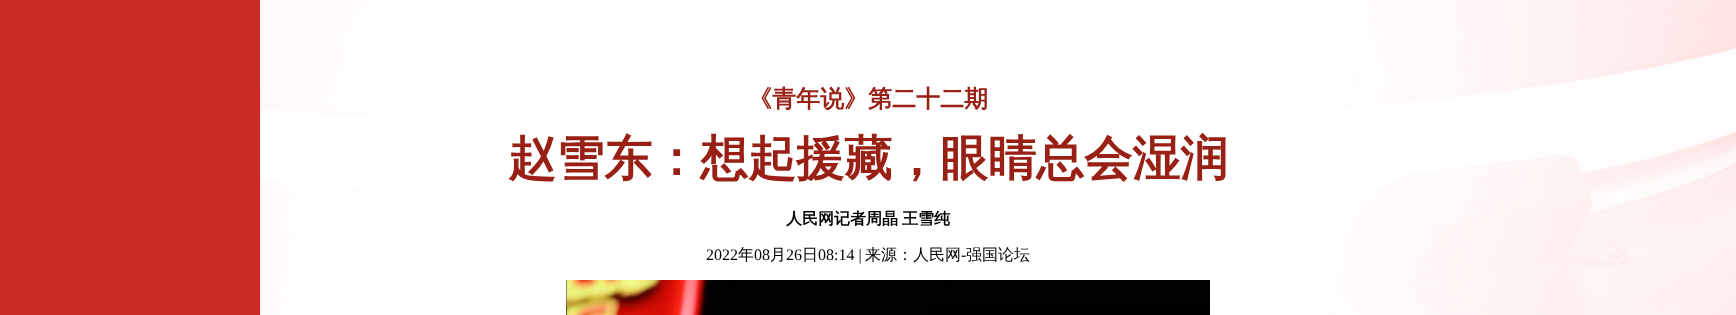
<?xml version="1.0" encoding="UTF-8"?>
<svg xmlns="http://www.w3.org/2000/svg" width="1736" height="315">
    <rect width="100%" height="100%" fill="#FFFFFF"/>
    <image x="260" y="0" width="1476" height="315" href="img_01.png"/>
    <rect x="0" y="0" width="260" height="315" fill="#CC2A27"/>
    <text x="748" y="107" font-family="WenQuanYi Zen Hei" font-size="24" font-weight="700" fill="#992014">《青年说》第二十二期</text>
    <text x="508" y="175" font-family="WenQuanYi Zen Hei" font-size="48" font-weight="700" fill="#992014">赵雪东：想起援藏，眼睛总会湿润</text>
    <text x="786" y="224" font-family="WenQuanYi Zen Hei" font-size="16" font-weight="700" fill="#000000">人民网记者周晶</text>
    <text x="902" y="224" font-family="WenQuanYi Zen Hei" font-size="16" font-weight="700" fill="#000000">王雪纯</text>
    <text x="706" y="260" font-family="Liberation Serif" font-size="16" fill="#000000">2022</text>
    <text x="738" y="260" font-family="WenQuanYi Zen Hei" font-size="16" font-weight="500" fill="#000000">年</text>
    <text x="754" y="260" font-family="Liberation Serif" font-size="16" fill="#000000">08</text>
    <text x="770" y="260" font-family="WenQuanYi Zen Hei" font-size="16" font-weight="500" fill="#000000">月</text>
    <text x="786" y="260" font-family="Liberation Serif" font-size="16" fill="#000000">26</text>
    <text x="802" y="260" font-family="WenQuanYi Zen Hei" font-size="16" font-weight="500" fill="#000000">日</text>
    <text x="818" y="260" font-family="Liberation Serif" font-size="16" fill="#000000">08:14 |</text>
    <text x="865" y="260" font-family="WenQuanYi Zen Hei" font-size="16" font-weight="500" fill="#000000">来源：人民网</text>
    <text x="961" y="260" font-family="Liberation Serif" font-size="16" fill="#000000">-</text>
    <text x="966" y="260" font-family="WenQuanYi Zen Hei" font-size="16" font-weight="500" fill="#000000">强国论坛</text>
    <image x="566" y="280" width="644" height="35" href="img_02.png"/>
</svg>
